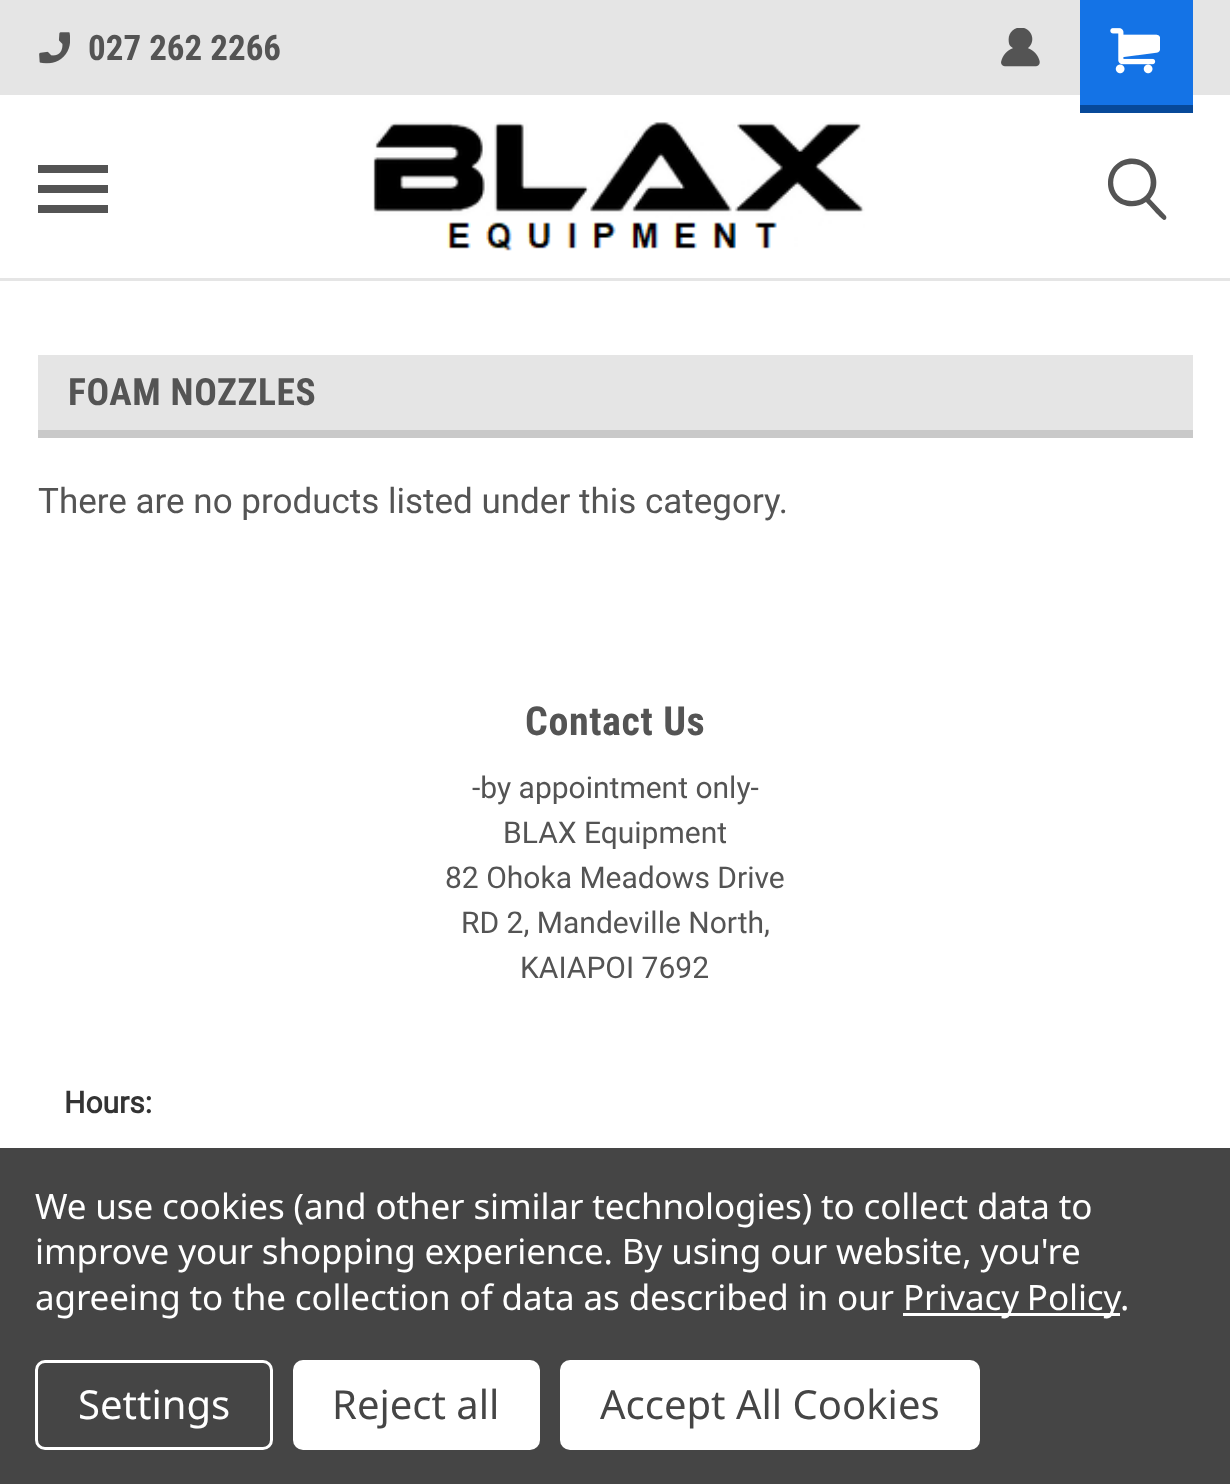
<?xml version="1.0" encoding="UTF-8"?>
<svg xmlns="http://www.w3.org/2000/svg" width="1230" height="1484">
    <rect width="100%" height="100%" fill="#FFFFFF"/>
    <rect x="0" y="278" width="1230" height="3" fill="#E5E5E5"/>
    <rect x="0" y="0" width="1230" height="95" fill="#E5E5E5"/>
    <image x="39" y="32" width="31" height="32" href="img_01.png"/>
    <text x="88" y="60" font-family="Roboto Condensed" font-size="35" font-weight="700" fill="#545454">027 262 2266</text>
    <image x="1001" y="28" width="39" height="39" href="img_02.png"/>
    <rect x="1080" y="0" width="113" height="105" fill="#1473E6"/>
    <rect x="1080" y="105" width="113" height="8" fill="#074999"/>
    <image x="1110" y="28" width="50" height="46" href="img_03.png"/>
    <rect x="38" y="185" width="70" height="8" fill="#545454"/>
    <rect x="38" y="165" width="70" height="8" fill="#545454"/>
    <rect x="38" y="205" width="70" height="8" fill="#545454"/>
    <image x="373" y="122" width="492" height="129" href="img_04.png"/>
    <path d="M 1164 220 C 1162 220 1149 205 1146 202 C 1130 213 1107 202 1108 182 C 1109 162 1130 152 1146 163 C 1158 171 1160 188 1150 199 L 1166 216 C 1167 218 1166 220 1164 220 Z M 1132 164 C 1107 164 1107 201 1132 201 C 1157 201 1157 164 1132 164 Z" fill="#545454"/>
    <rect x="38" y="355" width="1155" height="75" fill="#E5E5E5"/>
    <rect x="38" y="430" width="1155" height="8" fill="#C9C9C9"/>
    <text x="68" y="405" font-family="Roboto Condensed" font-size="37.5" font-weight="700" letter-spacing="0.6" fill="#545454">FOAM NOZZLES</text>
    <text x="38" y="513" font-family="Roboto" font-size="35" fill="#545454">There are no products listed under this category.</text>
    <text x="525" y="735" font-family="Roboto Condensed" font-size="40" font-weight="700" letter-spacing="0.6" fill="#545454">Contact Us</text>
    <text x="472" y="798" font-family="Roboto" font-size="30" fill="#545454">-by appointment only-</text>
    <text x="503" y="843" font-family="Roboto" font-size="30" fill="#545454">BLAX Equipment</text>
    <text x="445" y="888" font-family="Roboto" font-size="30" fill="#545454">82 Ohoka Meadows Drive</text>
    <text x="461" y="933" font-family="Roboto" font-size="30" fill="#545454">RD 2, Mandeville North,</text>
    <text x="520" y="978" font-family="Roboto" font-size="30" fill="#545454">KAIAPOI 7692</text>
    <text x="64" y="1113" font-family="Roboto" font-size="30" font-weight="700" fill="#333333">Hours:</text>
    <rect x="0" y="1148" width="1230" height="336" fill="#454545"/>
    <text font-family="Noto Sans" font-size="35" letter-spacing="-0.12" fill="#FFFFFF">
        <tspan x="35" y="1219">We use cookies (and other similar technologies) to collect data to</tspan>
        <tspan x="35" y="1264">improve your shopping experience. By using our website, you're</tspan>
        <tspan x="35" y="1310">agreeing to the collection of data as described in our</tspan>
    </text>
    <rect x="903" y="1313" width="217" height="3" fill="#FFFFFF"/>
    <text x="903" y="1310" word-spacing="-1" font-family="Noto Sans" font-size="35" letter-spacing="-0.12" fill="#FFFFFF">Privacy Policy</text>
    <text x="1120" y="1310" font-family="Noto Sans" font-size="35" letter-spacing="-0.12" fill="#FFFFFF">.</text>
    <rect x="36.5" y="1361.5" width="235" height="87" rx="8.5" fill="none" stroke="#FFFFFF" stroke-width="3"/>
    <text x="78" y="1419" font-family="Noto Sans" font-size="40" fill="#FFFFFF">Settings</text>
    <rect x="293" y="1360" width="247" height="90" rx="10" fill="#FFFFFF"/>
    <text x="332" y="1419" font-family="Noto Sans" font-size="40" fill="#454545">Reject all</text>
    <rect x="560" y="1360" width="420" height="90" rx="10" fill="#FFFFFF"/>
    <text x="600" y="1419" font-family="Noto Sans" font-size="40" fill="#454545">Accept All Cookies</text>
</svg>
